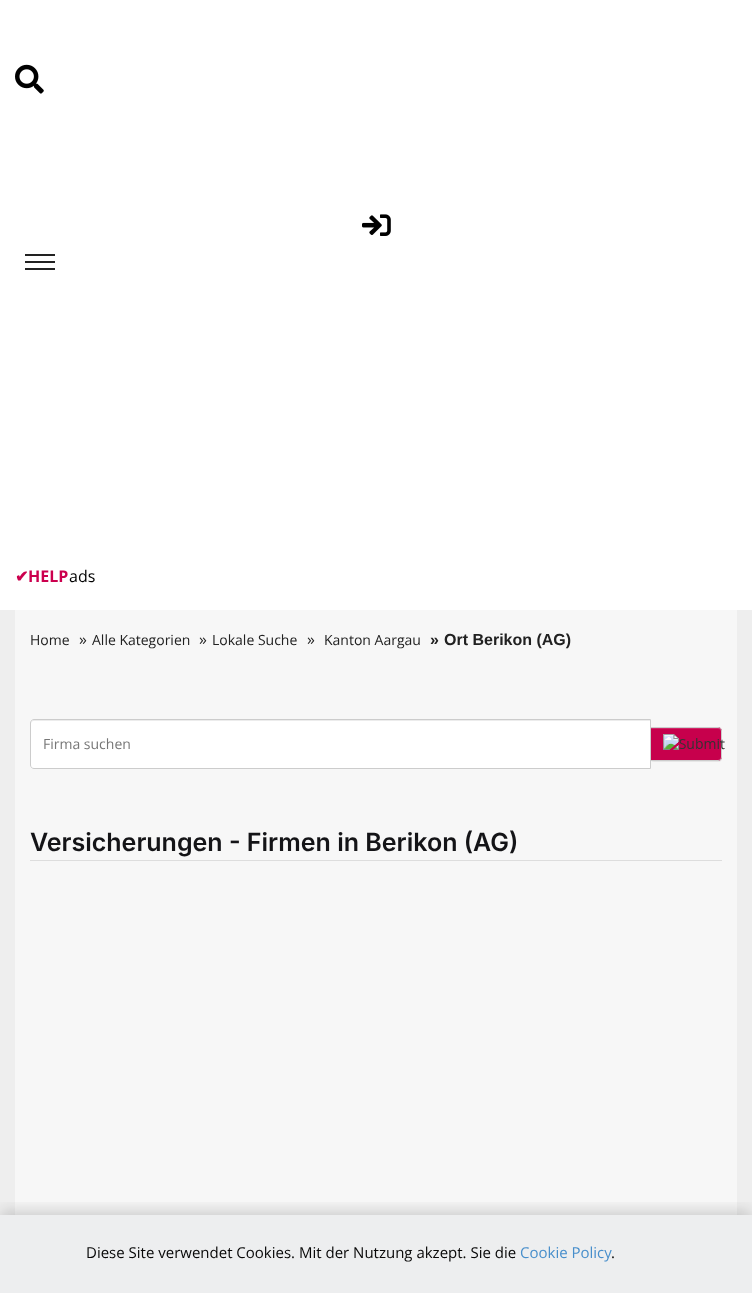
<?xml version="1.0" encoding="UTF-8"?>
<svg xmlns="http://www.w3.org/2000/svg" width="752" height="1293">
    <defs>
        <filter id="blur1" x="-50%" y="-200%" width="200%" height="500%"><feGaussianBlur stdDeviation="0.5"/></filter>
        <clipPath id="clip1"><rect x="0" y="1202" width="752" height="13"/></clipPath>
        <filter id="blur2" x="-50%" y="-200%" width="200%" height="500%"><feGaussianBlur stdDeviation="7.5"/></filter>
    </defs>
    <rect width="100%" height="100%" fill="#FFFFFF"/>
    <image x="15" y="64" width="29" height="30" href="img_01.png"/>
    <image x="362" y="214" width="29" height="22" href="img_02.png"/>
    <rect x="25" y="254" width="30" height="2" fill="#222222"/>
    <rect x="25" y="261" width="30" height="2" fill="#222222"/>
    <rect x="25" y="268" width="30" height="2" fill="#222222"/>
    <text x="15" y="582" font-family="DejaVu Sans" font-size="16" font-weight="700" fill="#CC004E">✔</text>
    <text x="28" y="582" font-family="Open Sans" font-size="16" font-weight="700" fill="#CC004E">HELP</text>
    <text x="69" y="582" font-family="Open Sans" font-size="16" fill="#000000">ads</text>
    <rect x="0" y="610" width="752" height="605" fill="#EEEEEE"/>
    <rect x="0" y="1215" width="752" height="78" fill="#EDEEEF"/>
    <rect x="15" y="610" width="722" height="605" fill="#F7F7F7"/>
    <text x="30" y="645" font-family="Open Sans" font-size="14" fill="#212121">Home</text>
    <text x="79" y="645" font-family="Open Sans" font-size="16" fill="#212121">»</text>
    <text x="92" y="645" font-family="Open Sans" font-size="14" fill="#212121">Alle Kategorien</text>
    <text x="199" y="645" font-family="Open Sans" font-size="16" fill="#212121">»</text>
    <text x="212" y="645" font-family="Open Sans" font-size="14" fill="#212121">Lokale Suche</text>
    <text x="307" y="645" font-family="Open Sans" font-size="16" fill="#212121">»</text>
    <text x="324" y="645" font-family="Open Sans" font-size="14" fill="#212121">Kanton Aargau</text>
    <text x="430" y="645" font-family="Liberation Sans" font-size="16" font-weight="700" fill="#212121">»</text>
    <text x="444" y="645" font-family="Liberation Sans" font-size="16" font-weight="700" fill="#212121">Ort Berikon (AG)</text>
    <rect x="650" y="728" width="72" height="34" rx="4" fill="#000000" fill-opacity="0.07" filter="url(#blur1)"/>
    <path d="M 650 727 H 718 C 720 727 722 729 722 731 V 757 C 722 759 720 761 718 761 H 650 Z" fill="#C7004C"/>
    <path d="M 651 729 H 718 C 720 729 721 730 721 732 V 731 C 721 729 720 728 718 728 H 651 Z" fill="#CF2667"/>
    <path d="M 650.5 727.5 H 718 C 720 727.5 721.5 729 721.5 731 V 757 C 721.5 759 720 760.5 718 760.5 H 650.5 Z" fill="none" stroke="#CCCCCC"/>
    <path d="M 34 719 H 651 V 769 H 34 C 32 769 30 767 30 765 V 723 C 30 721 32 719 34 719 Z" fill="#FFFFFF"/>
    <path d="M 34 721 H 650 V 720 H 34 C 32 720 31 721 31 723 V 724 C 31 722 32 721 34 721 Z" fill="#ECECEC"/>
    <path d="M 34 719.5 H 650.5 V 768.5 H 34 C 32 768.5 30.5 767 30.5 765 V 723 C 30.5 721 32 719.5 34 719.5 Z" fill="none" stroke="#CCCCCC"/>
    <text x="43" y="749" font-family="Open Sans" font-size="14" fill="#777777">Firma suchen</text>
    <image x="663" y="734" width="58" height="16" href="img_03.png"/>
    <text x="720" y="749" font-family="Open Sans" font-size="14" fill="#333333">t</text>
    <text x="30" y="851" font-family="Inter" font-size="25" font-weight="600" fill="#141417">Versicherungen - Firmen in Berikon (AG)</text>
    <rect x="30" y="860" width="692" height="1" fill="#DDDDDD"/>
    <g clip-path="url(#clip1)">
        <rect x="1" y="1211" width="750" height="76" fill="#000000" fill-opacity="0.18" filter="url(#blur2)"/>
    </g>
    <text x="86" y="1258" font-family="Open Sans" font-size="15" fill="#070707">Diese Site verwendet Cookies. Mit der Nutzung akzept. Sie die</text>
    <text x="520" y="1258" font-family="Open Sans" font-size="15" fill="#478ECB">Cookie Policy</text>
    <text x="611" y="1258" font-family="Open Sans" font-size="15" fill="#070707">.</text>
</svg>
